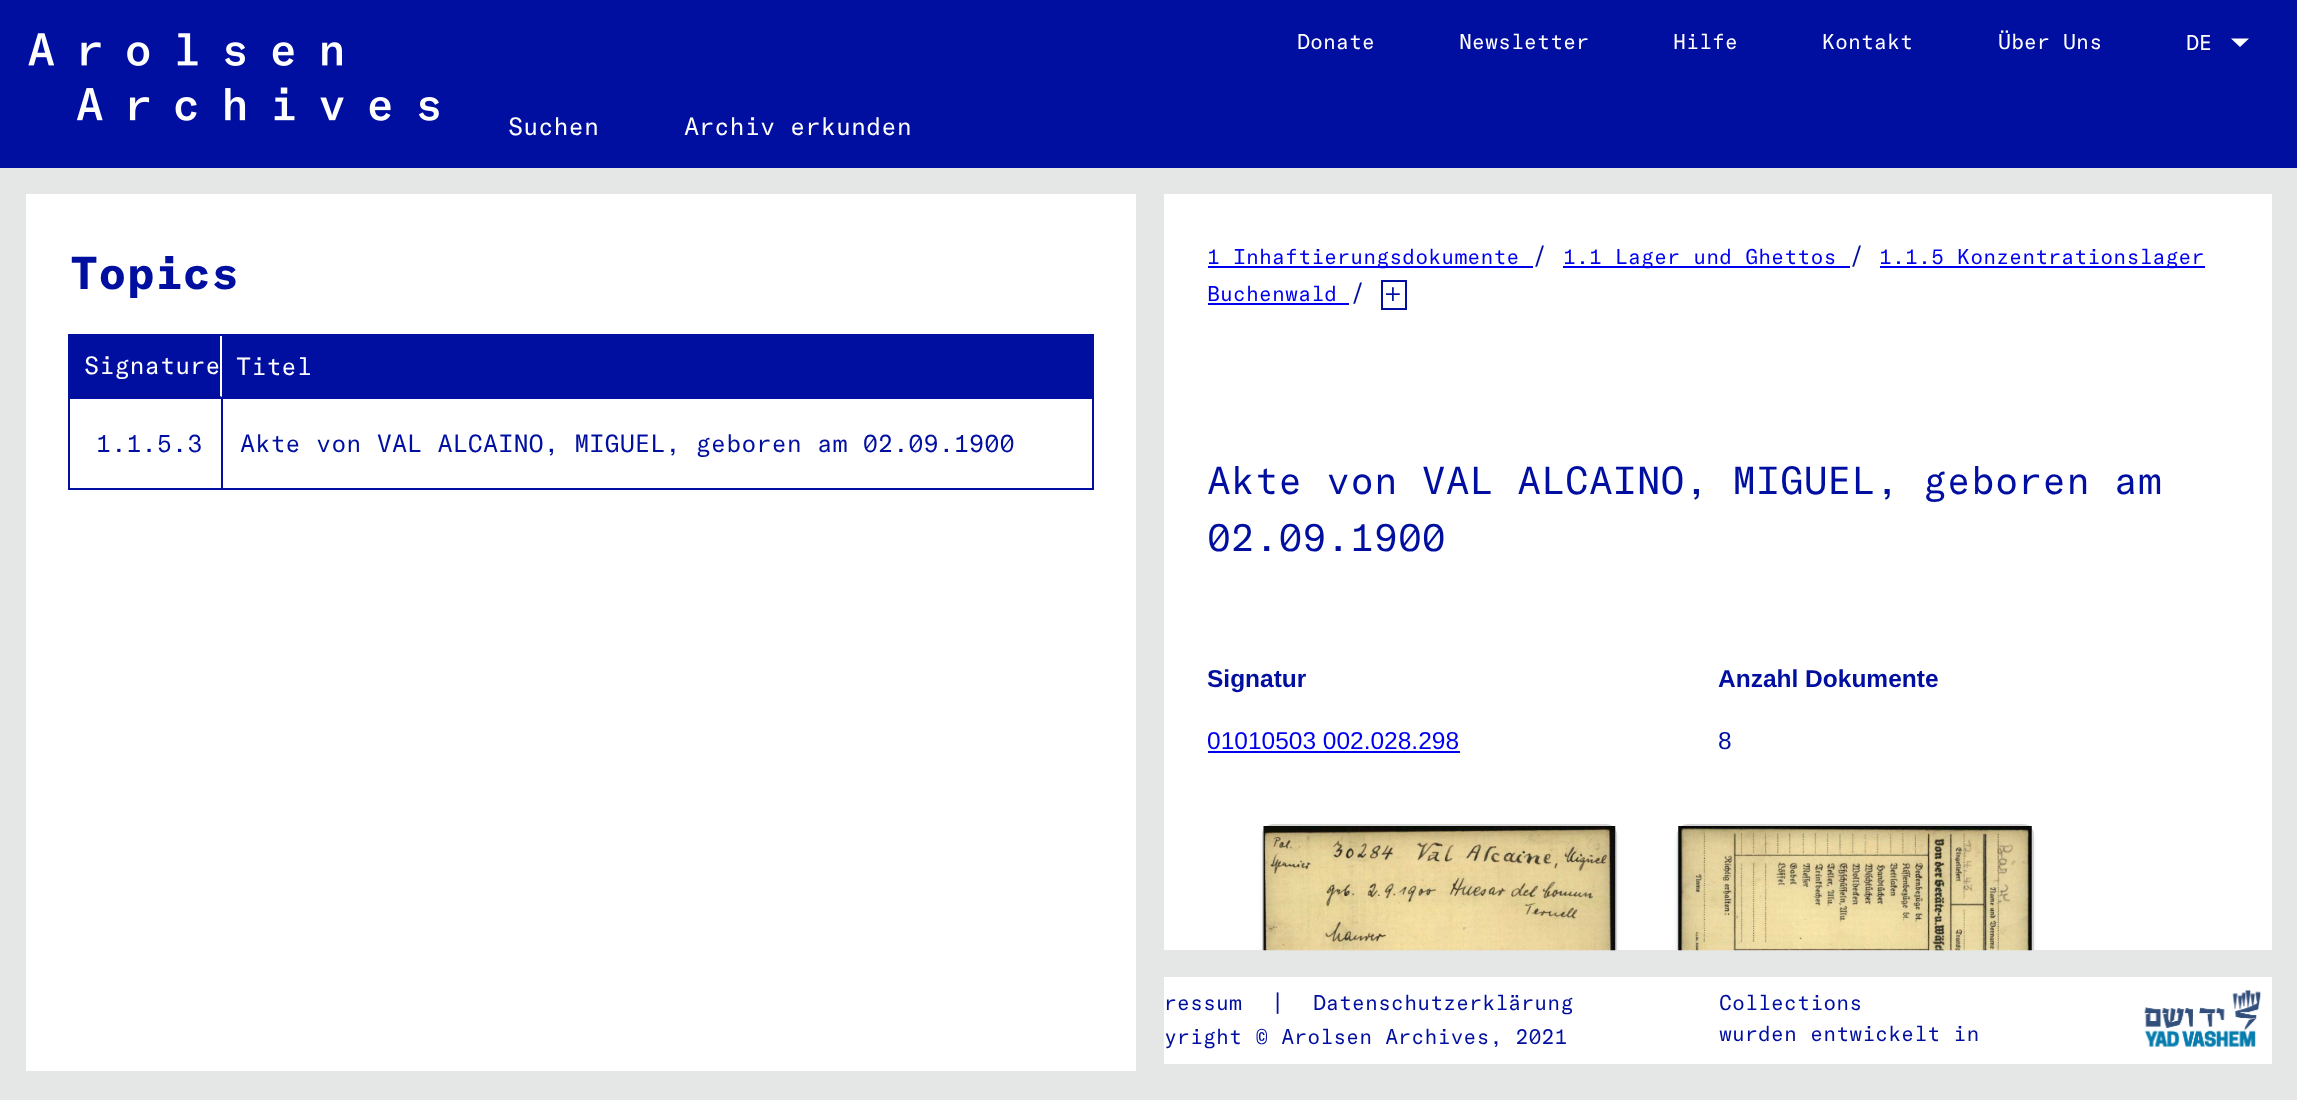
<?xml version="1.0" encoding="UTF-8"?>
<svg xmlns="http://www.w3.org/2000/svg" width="2297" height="1100">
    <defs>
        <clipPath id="clip1"><rect x="1208" y="637" width="509" height="158"/></clipPath>
        <clipPath id="clip2"><rect x="1164" y="194" width="1108" height="756"/></clipPath>
        <clipPath id="clip3"><rect x="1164" y="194" width="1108" height="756"/></clipPath>
        <filter id="blur1" x="-50%" y="-200%" width="200%" height="500%"><feGaussianBlur stdDeviation="2.5"/></filter>
    </defs>
    <rect width="100%" height="100%" fill="#E5E6E6"/>
    <rect x="0" y="0" width="2297" height="168" fill="#000FA0"/>
    <image x="28" y="33" width="411" height="88" href="img_01.png"/>
    <text x="1297" y="49" font-family="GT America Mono" font-size="21" fill="#FFFFFF">Donate</text>
    <text x="1459" y="49" font-family="GT America Mono" font-size="21" fill="#FFFFFF">Newsletter</text>
    <text x="1673" y="49" font-family="GT America Mono" font-size="21" fill="#FFFFFF">Hilfe</text>
    <text x="1822" y="49" font-family="GT America Mono" font-size="21" fill="#FFFFFF">Kontakt</text>
    <text x="1998" y="49" font-family="GT America Mono" font-size="21" fill="#FFFFFF">Über Uns</text>
    <text x="2186" y="50" font-family="GT America Mono" font-size="21" fill="#FFFFFF">DE</text>
    <path d="M 2231 38.5 H 2249 L 2240 47 Z" fill="#FFFFFF"/>
    <text x="508" y="135" font-family="GT America Mono" font-size="24.5" fill="#FFFFFF">Suchen</text>
    <text x="684" y="135" font-family="GT America Mono" font-size="24.5" fill="#FFFFFF">Archiv erkunden</text>
    <rect x="26" y="194" width="1110" height="877" fill="#FFFFFF"/>
    <text x="70" y="289" font-family="GT America Mono" font-size="45.5" font-weight="700" fill="#000FA0">Topics</text>
    <rect x="69" y="335" width="1024" height="154" fill="none" stroke="#000FA0" stroke-width="2"/>
    <rect x="70" y="336" width="1022" height="61" fill="#000FA0"/>
    <path d="M 222 336 V 397 L 220 396 V 336 Z" fill="#FFFFFF"/>
    <path d="M 222 397 H 70 V 396 H 220 Z" fill="#000000" fill-opacity="0.12"/>
    <text x="84" y="374" font-family="GT America Mono" font-size="24.5" fill="#FFFFFF">Signature</text>
    <text x="236" y="375" font-family="GT America Mono" font-size="24.5" fill="#FFFFFF">Titel</text>
    <rect x="70" y="397" width="152" height="2" fill="#000FA0"/>
    <rect x="221" y="397" width="2" height="91" fill="#000FA0"/>
    <text x="96" y="452" font-family="GT America Mono" font-size="24.5" fill="#000FA0">1.1.5.3</text>
    <rect x="222" y="397" width="870" height="2" fill="#000FA0"/>
    <text x="240" y="452" font-family="GT America Mono" font-size="24.5" fill="#000FA0">Akte von VAL ALCAINO, MIGUEL, geboren am 02.09.1900</text>
    <rect x="1164" y="194" width="1108" height="756" fill="#FFFFFF"/>
    <rect x="1208" y="266" width="325" height="2" fill="#0000EE"/>
    <text x="1207" y="264" font-family="GT America Mono" font-size="21" fill="#0000EE">1 Inhaftierungsdokumente</text>
    <text x="1532" y="264" font-family="GT America Mono" font-size="24.5" fill="#000FA0">/</text>
    <rect x="1563" y="266" width="287" height="2" fill="#0000EE"/>
    <text x="1563" y="264" font-family="GT America Mono" font-size="21" fill="#0000EE">1.1 Lager und Ghettos</text>
    <text x="1849" y="264" font-family="GT America Mono" font-size="24.5" fill="#000FA0">/</text>
    <rect x="1880" y="266" width="325" height="2" fill="#0000EE"/>
    <text x="1879" y="264" font-family="GT America Mono" font-size="21" fill="#0000EE">1.1.5 Konzentrationslager</text>
    <text x="1207" y="301" font-family="GT America Mono" font-size="21" fill="#0000EE">Buchenwald</text>
    <rect x="1208" y="303" width="141" height="2" fill="#0000EE"/>
    <text x="1350" y="301" font-family="GT America Mono" font-size="24.5" fill="#000FA0">/</text>
    <rect x="1382" y="281" width="24" height="28" fill="none" stroke="#000FA0" stroke-width="2"/>
    <image x="1386" y="287" width="14" height="14" href="img_02.png"/>
    <text font-family="GT America Mono" font-size="38.5" fill="#000FA0">
        <tspan x="1207" y="494">Akte von VAL ALCAINO, MIGUEL, geboren am</tspan>
        <tspan x="1207" y="551">02.09.1900</tspan>
    </text>
    <text x="1207" y="687" font-family="Liberation Sans" font-size="24.5" font-weight="700" fill="#000FA0">Signatur</text>
    <g clip-path="url(#clip1)">
        <text x="1207" y="749" font-family="Liberation Sans" font-size="24.5" fill="#0000EE">01010503 002.028.298</text>
    </g>
    <rect x="1208" y="751" width="252" height="2" fill="#0000EE"/>
    <text x="1718" y="687" font-family="Liberation Sans" font-size="24.5" font-weight="700" fill="#000FA0">Anzahl Dokumente</text>
    <text x="1718" y="749" font-family="Liberation Sans" font-size="24.5" fill="#000FA0">8</text>
    <rect x="1164" y="977" width="1108" height="87" fill="#FFFFFF"/>
    <g clip-path="url(#clip2)">
        <rect x="1263" y="825" width="353" height="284" rx="10" fill="none" stroke="#D4D4D5" stroke-width="2"/>
    </g>
    <g clip-path="url(#clip3)">
        <rect x="1264" y="828" width="351" height="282" rx="9" fill="#D4D4D5" filter="url(#blur1)"/>
    </g>
    <image x="1263" y="826" width="353" height="125" href="img_03.png"/>
    <g clip-path="url(#clip2)">
        <rect x="1678" y="825" width="355" height="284" rx="10" fill="none" stroke="#D4D4D5" stroke-width="2"/>
    </g>
    <g clip-path="url(#clip3)">
        <rect x="1678" y="828" width="354" height="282" rx="9" fill="#D4D4D5" filter="url(#blur1)"/>
    </g>
    <image x="1678" y="826" width="354" height="125" href="img_04.png"/>
    <text x="1164" y="1010" font-family="GT America Mono" font-size="21" fill="#000FA0">ressum</text>
    <text x="1270" y="1011" font-family="GT America Mono" font-size="24.5" fill="#000FA0">|</text>
    <text x="1313" y="1010" font-family="GT America Mono" font-size="21" fill="#000FA0">Datenschutzerklärung</text>
    <text x="1164" y="1044" font-family="GT America Mono" font-size="21" fill="#000FA0">yright © Arolsen Archives, 2021</text>
    <text font-family="GT America Mono" font-size="21" fill="#000FA0">
        <tspan x="1719" y="1010">Collections</tspan>
        <tspan x="1719" y="1041">wurden entwickelt in</tspan>
    </text>
    <image x="2144" y="989" width="117" height="59" href="img_05.png"/>
</svg>
